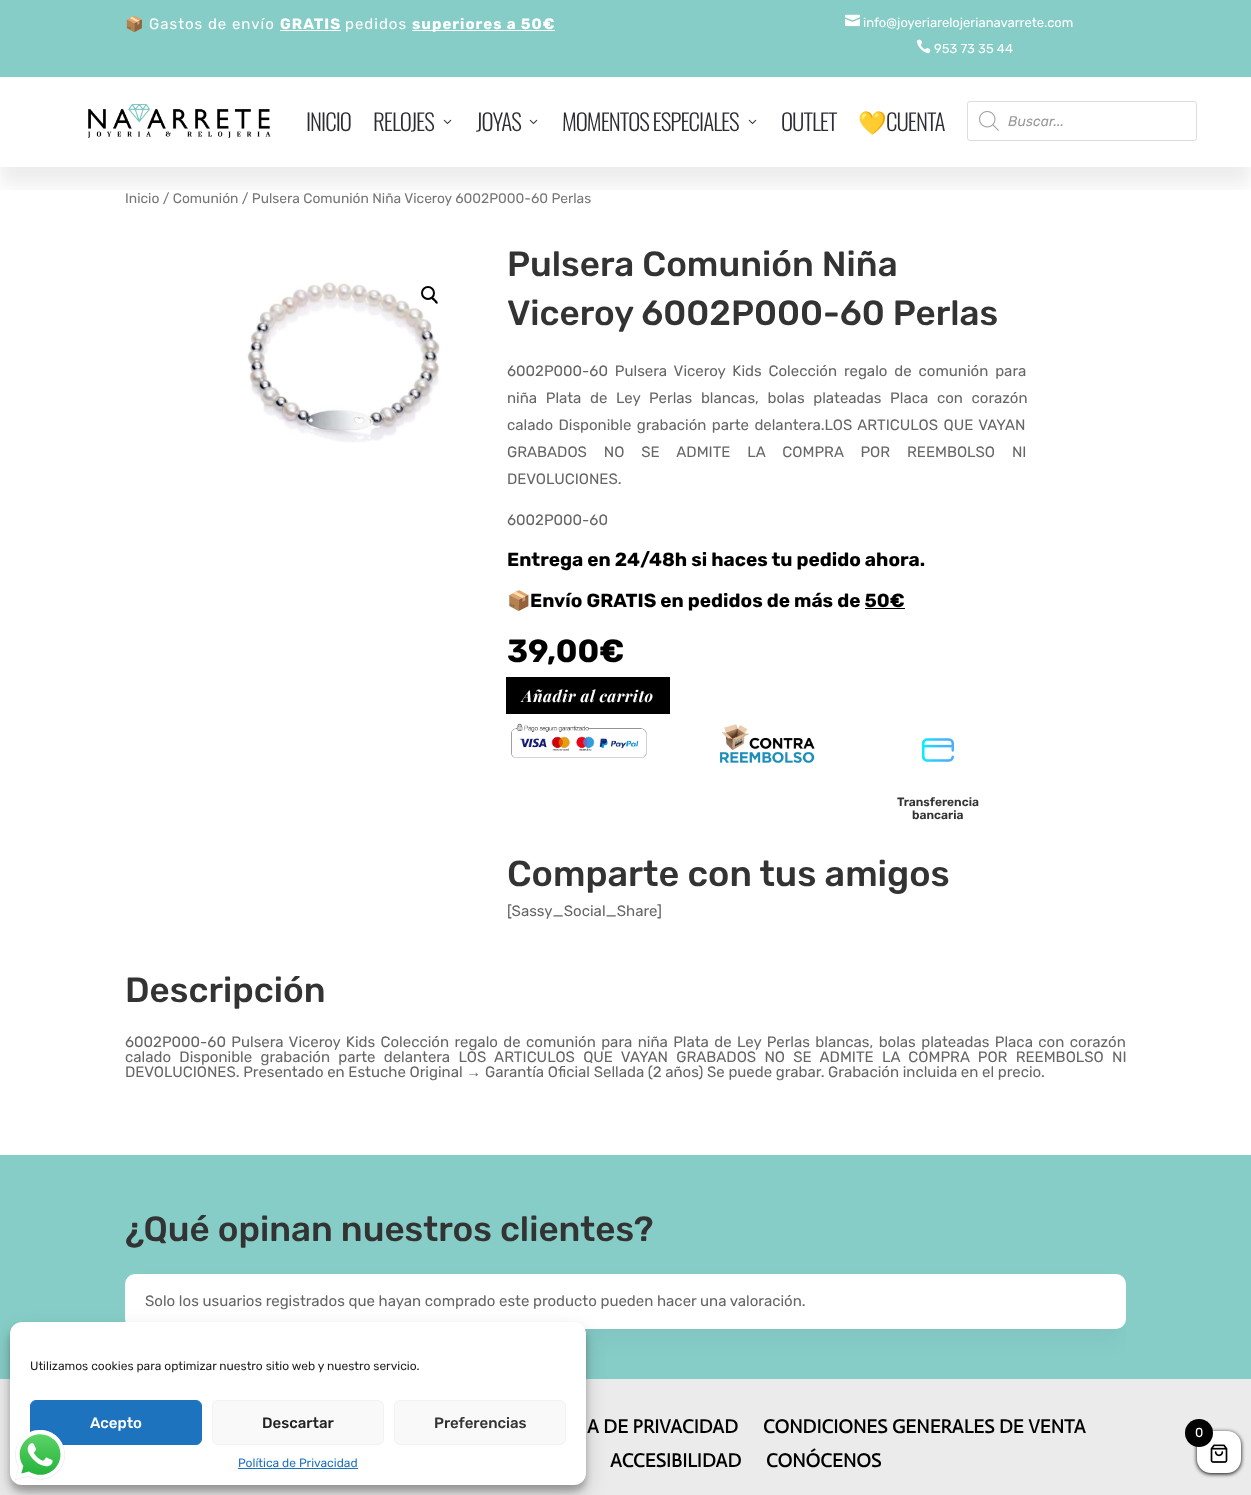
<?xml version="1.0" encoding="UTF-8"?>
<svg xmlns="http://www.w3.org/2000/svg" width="1251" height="1495">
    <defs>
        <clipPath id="clip1"><rect x="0" y="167" width="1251" height="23"/></clipPath>
        <filter id="blur1" x="-50%" y="-200%" width="200%" height="500%"><feGaussianBlur stdDeviation="9"/></filter>
        <clipPath id="clip2"><rect x="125" y="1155" width="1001" height="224" rx="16"/></clipPath>
        <filter id="blur2" x="-50%" y="-200%" width="200%" height="500%"><feGaussianBlur stdDeviation="12"/></filter>
        <filter id="blur3" x="-50%" y="-200%" width="200%" height="500%"><feGaussianBlur stdDeviation="3"/></filter>
        <filter id="blur4" x="-50%" y="-200%" width="200%" height="500%"><feGaussianBlur stdDeviation="10"/></filter>
        <filter id="blur5" x="-50%" y="-200%" width="200%" height="500%"><feGaussianBlur stdDeviation="2"/></filter>
    </defs>
    <rect width="100%" height="100%" fill="#FFFFFF"/>
    <rect x="0" y="0" width="1251" height="77" fill="#86CDC7"/>
    <text x="125" y="29" font-family="Noto Color Emoji" font-size="15" letter-spacing="1" fill="#FFFFFF">📦</text>
    <text x="149" y="29" font-family="Rubik" font-size="15" font-weight="300" letter-spacing="1" fill="#FFFFFF">Gastos de envío</text>
    <text x="280" y="29" font-family="'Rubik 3'" font-size="15" font-weight="300" letter-spacing="1" fill="#FFFFFF">GRATIS</text>
    <rect x="280" y="30" width="61" height="1" fill="#FFFFFF"/>
    <text x="345" y="29" font-family="Rubik" font-size="15" font-weight="300" letter-spacing="1" fill="#FFFFFF">pedidos</text>
    <rect x="412" y="30" width="143" height="1" fill="#FFFFFF"/>
    <text x="412" y="29" font-family="'Rubik 3'" font-size="15" font-weight="300" letter-spacing="1" fill="#FFFFFF">superiores a 50€</text>
    <image x="845" y="14" width="15" height="13" href="img_01.png"/>
    <text x="863" y="27" font-family="Rubik" font-size="13" font-weight="300" fill="#FFFFFF">info@joyeriarelojerianavarrete.com</text>
    <image x="916" y="39" width="15" height="15" href="img_02.png"/>
    <text x="934" y="53" font-family="Rubik" font-size="13" font-weight="300" fill="#FFFFFF">953 73 35 44</text>
    <g clip-path="url(#clip1)">
        <rect x="0" y="95" width="1251" height="90" fill="#000000" fill-opacity="0.07" filter="url(#blur1)"/>
    </g>
    <image x="88" y="104" width="183" height="34" href="img_03.png"/>
    <text x="306" y="131" font-family="Oswald" font-size="23" font-weight="300" letter-spacing="-1" fill="#2C2D33">INICIO</text>
    <text x="373" y="131" font-family="Oswald" font-size="23" font-weight="300" letter-spacing="-1" fill="#2C2D33">RELOJES</text>
    <image x="443" y="119" width="9" height="5" href="img_04.png"/>
    <text x="476" y="131" font-family="Oswald" font-size="23" font-weight="300" letter-spacing="-1" fill="#2C2D33">JOYAS</text>
    <image x="529" y="119" width="9" height="5" href="img_04.png"/>
    <text x="562" y="131" font-family="Oswald" font-size="23" font-weight="300" letter-spacing="-1" fill="#2C2D33">MOMENTOS ESPECIALES</text>
    <image x="748" y="119" width="9" height="5" href="img_04.png"/>
    <text x="781" y="131" font-family="Oswald" font-size="23" font-weight="300" letter-spacing="-1" fill="#2C2D33">OUTLET</text>
    <text x="858" y="131" font-family="Noto Color Emoji" font-size="23" letter-spacing="-1" fill="#2C2D33">💛</text>
    <text x="886" y="131" font-family="Oswald" font-size="23" font-weight="300" letter-spacing="-1" fill="#2C2D33">CUENTA</text>
    <rect x="967.5" y="101.5" width="229" height="39" rx="2.5" fill="none" stroke="#DDDDDD"/>
    <image x="979" y="111" width="20" height="20" href="img_05.png"/>
    <text x="1008" y="126" font-family="Rubik" font-size="14" font-weight="300" font-style="italic" fill="#999999">Buscar...</text>
    <text x="125" y="203" font-family="Rubik" font-size="13.8" font-weight="300" fill="#767676">Inicio / Comunión / Pulsera Comunión Niña Viceroy 6002P000-60 Perlas</text>
    <image x="247" y="281" width="193" height="162" href="img_06.png"/>
    <circle cx="430" cy="295" r="18" fill="#FFFFFF"/>
    <circle cx="428" cy="293" r="6" fill="none" stroke="#000000" stroke-width="2"/>
    <path d="M 432 297.5 C 433 296.5 435 299 435.5 299.5 C 436 300.5 438.5 302 437.5 303.5 C 436.5 304.5 434.5 302 434 301 C 433.5 300.5 430.5 299 432 297.5 Z" fill="#000000"/>
    <text font-family="'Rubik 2'" font-size="35" font-weight="300" fill="#333333">
        <tspan x="507" y="276">Pulsera Comunión Niña</tspan>
        <tspan x="507" y="325">Viceroy 6002P000-60 Perlas</tspan>
    </text>
    <text font-family="Rubik" font-size="15" font-weight="300" fill="#666666">
        <tspan x="507" y="376" word-spacing="3.25">6002P000-60 Pulsera Viceroy Kids Colección regalo de comunión para</tspan>
        <tspan x="507" y="403" word-spacing="5">niña Plata de Ley Perlas blancas, bolas plateadas Placa con corazón</tspan>
        <tspan x="507" y="430" word-spacing="1.75">calado Disponible grabación parte delantera.LOS ARTICULOS QUE VAYAN</tspan>
        <tspan x="507" y="457" word-spacing="13.25">GRABADOS NO SE ADMITE LA COMPRA POR REEMBOLSO NI</tspan>
        <tspan x="507" y="484">DEVOLUCIONES.</tspan>
    </text>
    <text x="507" y="525" font-family="Rubik" font-size="15" font-weight="300" fill="#666666">6002P000-60</text>
    <text x="507" y="566" font-family="'Rubik 3'" font-size="19" font-weight="300" fill="#000000">Entrega en 24/48h si haces tu pedido ahora.</text>
    <text x="507" y="607" font-family="Noto Color Emoji" font-size="19" font-weight="700" fill="#000000">📦</text>
    <text x="530" y="607" font-family="'Rubik 3'" font-size="19" font-weight="300" fill="#000000">Envío GRATIS en pedidos de más de 50€</text>
    <rect x="865" y="608" width="40" height="1" fill="#000000"/>
    <text x="507" y="662" font-family="'Rubik 3'" font-size="32" font-weight="300" fill="#000000">39,00€</text>
    <rect x="506" y="677" width="164" height="37" fill="#000000"/>
    <text x="522" y="702" font-family="Playfair Display" font-size="16" font-weight="700" font-style="italic" letter-spacing="0.5" fill="#FFFFFF">Añadir al carrito</text>
    <image x="511" y="723" width="136" height="35" href="img_07.png"/>
    <image x="720" y="724" width="95" height="39" href="img_08.png"/>
    <image x="922" y="738" width="32" height="24" href="img_09.png"/>
    <text x="897" y="806" font-family="Rubik" font-size="12" font-weight="600" fill="#333333">Transferencia</text>
    <text x="912" y="819" font-family="Rubik" font-size="12" font-weight="600" fill="#333333">bancaria</text>
    <text x="507" y="886" font-family="'Rubik 2'" font-size="36" font-weight="300" fill="#333333">Comparte con tus amigos</text>
    <text x="507" y="916" font-family="Rubik" font-size="15" font-weight="300" fill="#666666">[Sassy_Social_Share]</text>
    <text x="125" y="1002" font-family="'Rubik 2'" font-size="35" font-weight="300" fill="#333333">Descripción</text>
    <text font-family="Rubik" font-size="15" font-weight="300" fill="#666666">
        <tspan x="125" y="1047" word-spacing="1.75">6002P000-60 Pulsera Viceroy Kids Colección regalo de comunión para niña Plata de Ley Perlas blancas, bolas plateadas Placa con corazón</tspan>
        <tspan x="125" y="1062" word-spacing="4.6">calado Disponible grabación parte delantera LOS ARTICULOS QUE VAYAN GRABADOS NO SE ADMITE LA COMPRA POR REEMBOLSO NI</tspan>
        <tspan x="125" y="1077">DEVOLUCIONES. Presentado en Estuche Original</tspan>
    </text>
    <text x="466" y="1077" font-family="Liberation Sans" font-size="15" fill="#666666">→</text>
    <text x="485" y="1077" font-family="Rubik" font-size="15" font-weight="300" fill="#666666">Garantía Oficial Sellada (2 años) Se puede grabar. Grabación incluida en el precio.</text>
    <rect x="0" y="1155" width="1251" height="224" fill="#86CDC7"/>
    <text x="125" y="1241" font-family="'Rubik 2'" font-size="35" font-weight="300" fill="#333333">¿Qué opinan nuestros clientes?</text>
    <g clip-path="url(#clip2)">
        <rect x="131" y="1292" width="989" height="43" rx="4" fill="#000645" fill-opacity="0.06" filter="url(#blur2)"/>
    </g>
    <rect x="125" y="1274" width="1001" height="55" rx="10" fill="#FFFFFF"/>
    <text x="145" y="1306" font-family="Rubik" font-size="15" font-weight="300" fill="#666666">Solo los usuarios registrados que hayan comprado este producto pueden hacer una valoración.</text>
    <rect x="0" y="1379" width="1251" height="116" fill="#EBEBEB"/>
    <text x="587" y="1433" font-family="Actor" font-size="19.4" font-weight="700" fill="#000000">A DE PRIVACIDAD</text>
    <text x="763" y="1433" font-family="Actor" font-size="19.4" font-weight="700" fill="#000000">CONDICIONES GENERALES DE VENTA</text>
    <text x="610" y="1467" font-family="Actor" font-size="19.4" font-weight="700" fill="#000000">ACCESIBILIDAD</text>
    <text x="766" y="1467" font-family="Actor" font-size="19.4" font-weight="700" fill="#000000">CONÓCENOS</text>
    <rect x="10" y="1328" width="576" height="163" rx="12" fill="#000000" fill-opacity="0.23" filter="url(#blur3)"/>
    <rect x="10" y="1332" width="576" height="163" rx="12" fill="#000000" fill-opacity="0.19" filter="url(#blur4)"/>
    <rect x="10" y="1322" width="576" height="163" rx="12" fill="#FFFFFF"/>
    <text x="30" y="1370" font-family="Rubik" font-size="12" font-weight="300" fill="#222222">Utilizamos cookies para optimizar nuestro sitio web y nuestro servicio.</text>
    <rect x="30.5" y="1400.5" width="171" height="44" rx="5.5" fill="#1E73BE" stroke="#1E73BE"/>
    <text x="90" y="1428" font-family="'Rubik 2'" font-size="15" font-weight="300" fill="#FFFFFF">Acepto</text>
    <rect x="212.5" y="1400.5" width="171" height="44" rx="5.5" fill="#F9F9F9" stroke="#F2F2F2"/>
    <text x="262" y="1428" font-family="'Rubik 2'" font-size="15" font-weight="300" fill="#222222">Descartar</text>
    <rect x="394.5" y="1400.5" width="171" height="44" rx="5.5" fill="#F9F9F9" stroke="#F2F2F2"/>
    <text x="434" y="1428" font-family="'Rubik 2'" font-size="15" font-weight="300" fill="#333333">Preferencias</text>
    <text x="238" y="1467" font-family="Rubik" font-size="12" font-weight="300" fill="#1E73BE">Política de Privacidad</text>
    <rect x="238" y="1468" width="120" height="1" fill="#1E73BE"/>
    <rect x="1197" y="1432" width="44" height="42" rx="14" fill="#000000" filter="url(#blur5)"/>
    <rect x="1197" y="1431" width="44" height="42" rx="14" fill="#FFFFFF"/>
    <circle cx="1199" cy="1433" r="14" fill="#000000"/>
    <text x="1195" y="1437" font-family="Rubik" font-size="13" font-weight="300" fill="#FFFFFF">0</text>
    <image x="1210" y="1444" width="18" height="19" href="img_10.png"/>
    <image x="15" y="1430" width="50" height="50" href="img_11.png"/>
</svg>
